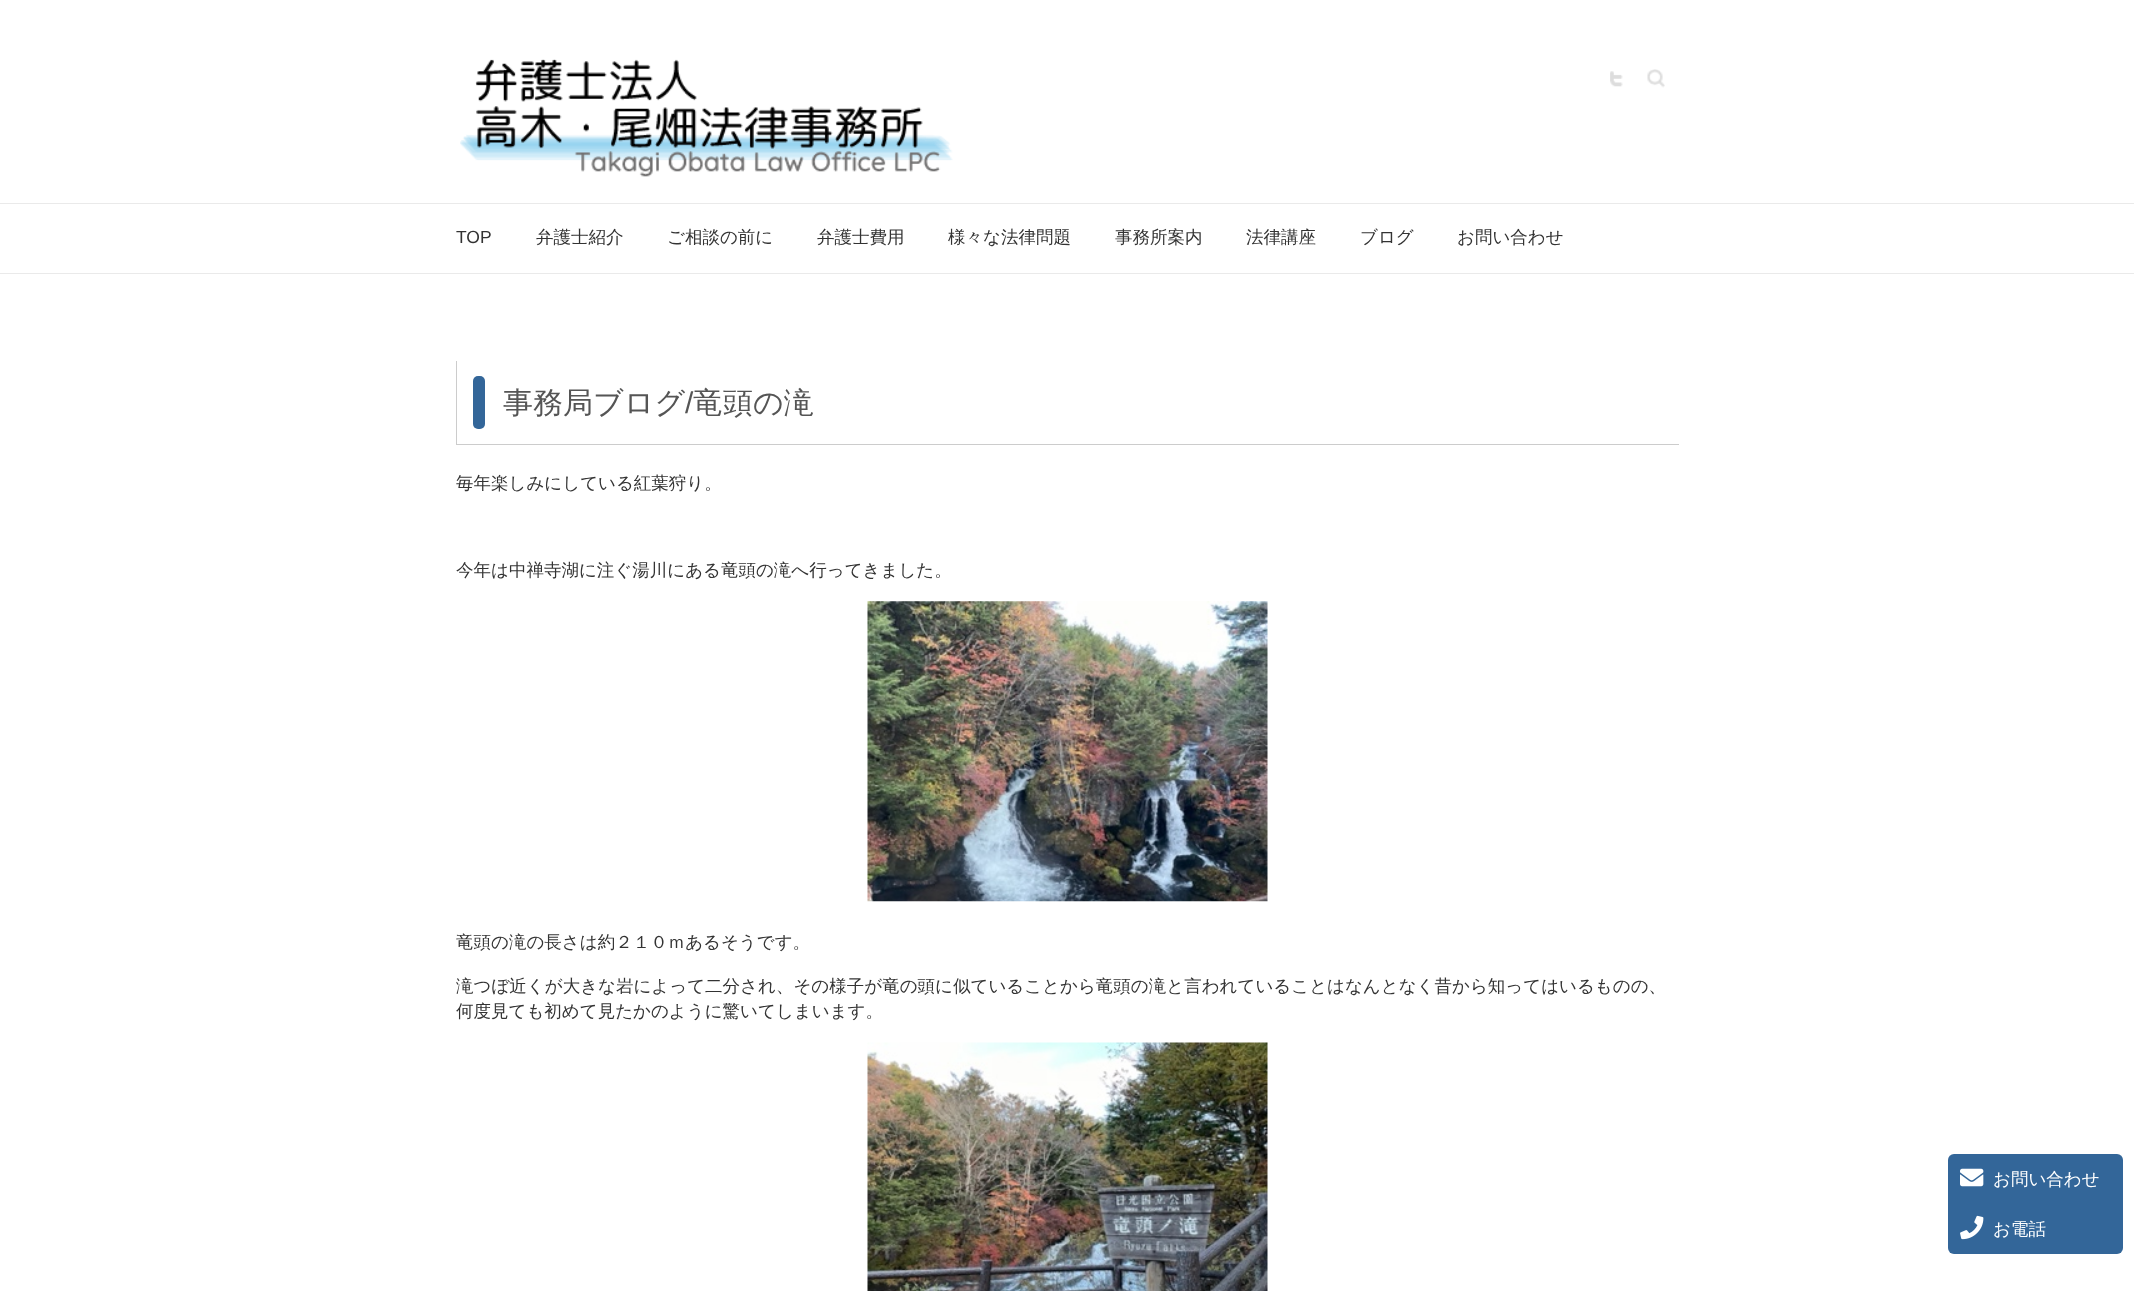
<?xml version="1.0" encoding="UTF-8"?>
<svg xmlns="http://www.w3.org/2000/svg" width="2134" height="1291">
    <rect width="100%" height="100%" fill="#FFFFFF"/>
    <image x="460" y="59" width="493" height="118" href="img_01.png"/>
    <image x="1610" y="71" width="13" height="16" href="img_02.png"/>
    <image x="1647" y="69" width="18" height="19" href="img_03.png"/>
    <rect x="0" y="203" width="2134" height="1" fill="#EAEAEA"/>
    <rect x="0" y="273" width="2134" height="1" fill="#EAEAEA"/>
    <text x="456" y="243" font-family="Liberation Sans" font-size="17.5" fill="#333333">TOP</text>
    <text x="536" y="243" font-family="WenQuanYi Zen Hei" font-size="17.5" font-weight="500" fill="#333333">弁護士紹介</text>
    <text x="667" y="243" font-family="WenQuanYi Zen Hei" font-size="17.5" font-weight="500" fill="#333333">ご相談の前に</text>
    <text x="817" y="243" font-family="WenQuanYi Zen Hei" font-size="17.5" font-weight="500" fill="#333333">弁護士費用</text>
    <text x="948" y="243" font-family="WenQuanYi Zen Hei" font-size="17.5" font-weight="500" fill="#333333">様々な法律問題</text>
    <text x="1115" y="243" font-family="WenQuanYi Zen Hei" font-size="17.5" font-weight="500" fill="#333333">事務所案内</text>
    <text x="1246" y="243" font-family="WenQuanYi Zen Hei" font-size="17.5" font-weight="500" fill="#333333">法律講座</text>
    <text x="1360" y="243" font-family="WenQuanYi Zen Hei" font-size="17.5" font-weight="500" fill="#333333">ブログ</text>
    <text x="1457" y="243" font-family="WenQuanYi Zen Hei" font-size="17.5" font-weight="500" fill="#333333">お問い合わせ</text>
    <rect x="456" y="444" width="1223" height="1" fill="#CCCCCC"/>
    <rect x="456" y="361" width="1" height="84" fill="#CCCCCC"/>
    <rect x="473" y="376" width="12" height="53" rx="5" fill="#336699"/>
    <text x="503" y="413" font-family="WenQuanYi Zen Hei" font-size="30" font-weight="500" fill="#555555">事務局ブログ</text>
    <text x="685" y="413" font-family="Liberation Sans" font-size="30" fill="#555555">/</text>
    <text x="693" y="413" font-family="WenQuanYi Zen Hei" font-size="30" font-weight="500" fill="#555555">竜頭の滝</text>
    <text x="456" y="489" font-family="WenQuanYi Zen Hei" font-size="17.5" font-weight="500" fill="#333333">毎年楽しみにしている紅葉狩り。</text>
    <text x="456" y="576" font-family="WenQuanYi Zen Hei" font-size="17.5" font-weight="500" fill="#333333">今年は中禅寺湖に注ぐ湯川にある竜頭の滝へ行ってきました。</text>
    <image x="867" y="601" width="401" height="301" href="img_04.png"/>
    <text x="456" y="948" font-family="WenQuanYi Zen Hei" font-size="17.5" font-weight="500" fill="#333333">竜頭の滝の長さは約２１０ｍあるそうです。</text>
    <text font-family="WenQuanYi Zen Hei" font-size="17.5" font-weight="500" fill="#333333">
        <tspan x="456" y="992">滝つぼ近くが大きな岩によって二分され、その様子が竜の頭に似ていることから竜頭の滝と言われていることはなんとなく昔から知ってはいるものの、</tspan>
        <tspan x="456" y="1017">何度見ても初めて見たかのように驚いてしまいます。</tspan>
    </text>
    <image x="867" y="1042" width="401" height="249" href="img_05.png"/>
    <rect x="1948" y="1154" width="175" height="100" rx="6" fill="#336699"/>
    <image x="1960" y="1168" width="24" height="19" href="img_06.png"/>
    <text x="1993" y="1185" font-family="WenQuanYi Zen Hei" font-size="17.5" font-weight="500" fill="#FFFFFF">お問い合わせ</text>
    <image x="1960" y="1215" width="24" height="25" href="img_07.png"/>
    <text x="1993" y="1235" font-family="WenQuanYi Zen Hei" font-size="17.5" font-weight="500" fill="#FFFFFF">お電話</text>
</svg>
